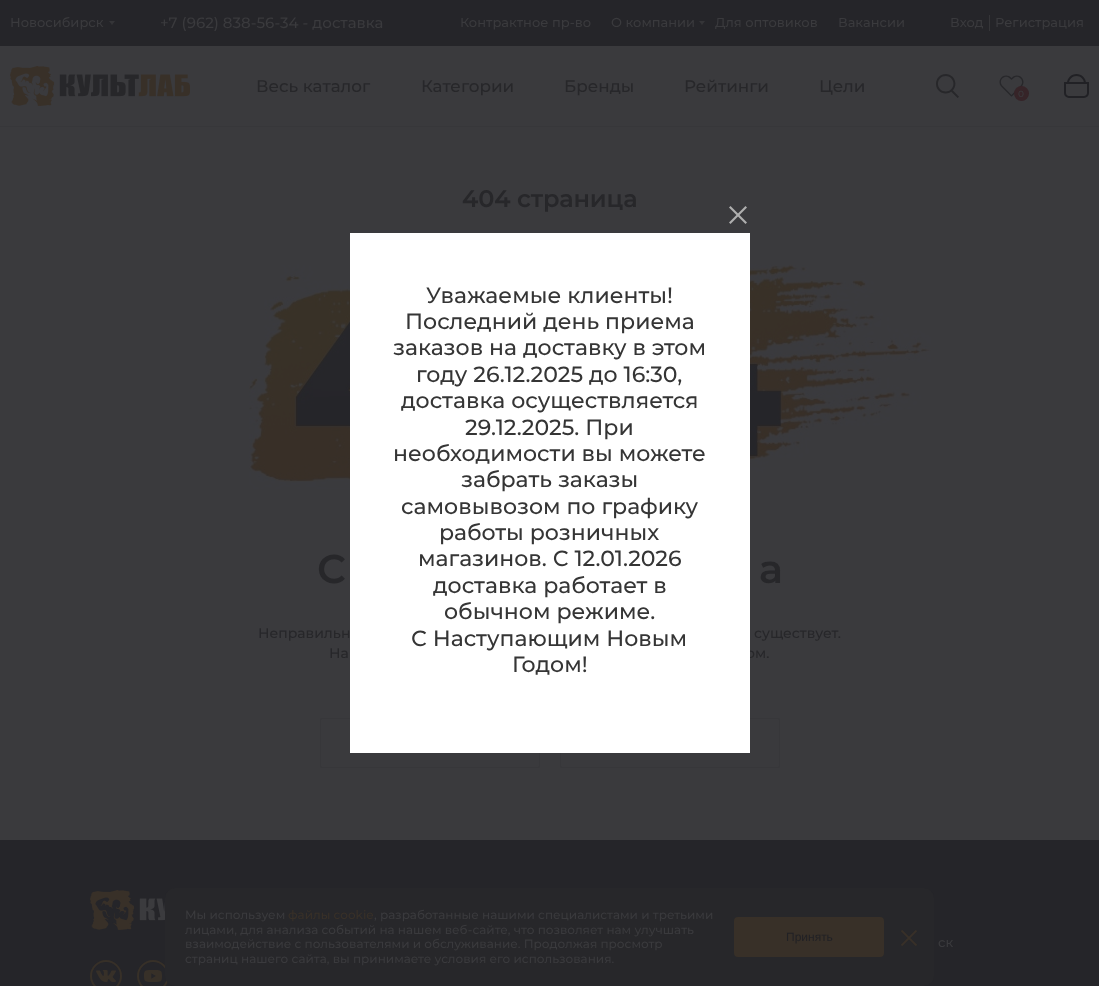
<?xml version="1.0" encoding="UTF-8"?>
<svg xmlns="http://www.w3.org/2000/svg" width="1099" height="986">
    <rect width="100%" height="100%" fill="#3A3A3D"/>
    <rect x="0" y="126" width="1099" height="1" fill="#37373A"/>
    <rect x="0" y="0" width="1099" height="46" fill="#252529"/>
    <text x="10" y="27" font-family="Montserrat" font-size="13" font-weight="500" fill="#3A3A3D">Новосибирск</text>
    <path d="M 109 21 H 115 L 112 25 Z" fill="#353538"/>
    <text x="160" y="28" font-family="Montserrat" font-size="15" font-weight="500" fill="#3A3A3D">+7 (962) 838-56-34 - доставка</text>
    <text x="460" y="27" font-family="Montserrat" font-size="13" font-weight="500" fill="#3A3A3D">Контрактное пр-во</text>
    <text x="611" y="27" font-family="Montserrat" font-size="13" font-weight="500" fill="#3A3A3D">О компании</text>
    <path d="M 699 21 H 705 L 702 25 Z" fill="#353538"/>
    <text x="715" y="27" font-family="Montserrat" font-size="13" font-weight="500" fill="#3A3A3D">Для оптовиков</text>
    <text x="838" y="27" font-family="Montserrat" font-size="13" font-weight="500" fill="#3A3A3D">Вакансии</text>
    <text x="950" y="27" font-family="Montserrat" font-size="13" font-weight="500" fill="#3A3A3D">Вход</text>
    <rect x="989" y="15" width="1" height="16" fill="#353538"/>
    <text x="995" y="27" font-family="Montserrat" font-size="13" font-weight="500" fill="#3A3A3D">Регистрация</text>
    <image x="10" y="66" width="180" height="40" href="img_01.png"/>
    <text x="256" y="92" font-family="Montserrat" font-size="16.75" font-weight="500" fill="#27272A">Весь каталог</text>
    <text x="421" y="92" font-family="Montserrat" font-size="16.75" font-weight="500" fill="#27272A">Категории</text>
    <text x="564" y="92" font-family="Montserrat" font-size="16.75" font-weight="500" fill="#27272A">Бренды</text>
    <text x="684" y="92" font-family="Montserrat" font-size="16.75" font-weight="500" fill="#27272A">Рейтинги</text>
    <text x="819" y="92" font-family="Montserrat" font-size="16.75" font-weight="500" fill="#27272A">Цели</text>
    <image x="936" y="74" width="23" height="24" href="img_02.png"/>
    <image x="999" y="75" width="25" height="22" href="img_03.png"/>
    <circle cx="1021.5" cy="93.5" r="7.5" fill="#362428"/>
    <text x="1018" y="97" font-family="Montserrat" font-size="9" font-weight="500" fill="#3A3A3D">0</text>
    <image x="1064" y="74" width="25" height="24" href="img_04.png"/>
    <text x="462" y="207" font-family="Montserrat" font-size="24" font-weight="600" letter-spacing="-0.1" fill="#27272A">404 страница</text>
    <image x="249" y="249" width="682" height="240" href="img_05.png"/>
    <text x="317" y="583" font-family="Montserrat" font-size="40" font-weight="600" fill="#27272A">С</text>
    <text x="759" y="583" font-family="Montserrat" font-size="40" font-weight="600" fill="#27272A">а</text>
    <text x="258" y="638" font-family="Montserrat" font-size="14" font-weight="500" fill="#27272A">Неправильн</text>
    <text x="754" y="638" font-family="Montserrat" font-size="14" font-weight="500" fill="#27272A">существует.</text>
    <text x="329" y="658" font-family="Montserrat" font-size="14" font-weight="500" fill="#27272A">На</text>
    <text x="746" y="658" font-family="Montserrat" font-size="14" font-weight="500" fill="#27272A">ом.</text>
    <rect x="320.5" y="718.5" width="219" height="49" rx="1.5" fill="none" stroke="#37373A"/>
    <rect x="560.5" y="718.5" width="219" height="49" rx="1.5" fill="none" stroke="#37373A"/>
    <rect x="0" y="840" width="1099" height="146" fill="#252529"/>
    <circle cx="153" cy="976" r="15" fill="none" stroke="#373028" stroke-width="2"/>
    <rect x="165" y="888" width="769" height="98" rx="10" fill="#27272A"/>
    <text x="185" y="919" font-family="Montserrat" font-size="12" font-weight="500" fill="#3A3A3D">Мы используем</text>
    <text x="288" y="919" font-family="Montserrat" font-size="12" font-weight="500" fill="#383028">файлы cookie</text>
    <text x="374" y="919" font-family="Montserrat" font-size="12" font-weight="500" fill="#3A3A3D">, разработанные нашими специалистами и третьими</text>
    <text font-family="Montserrat" font-size="12" font-weight="500" fill="#3A3A3D">
        <tspan x="185" y="934">лицами, для анализа событий на нашем веб-сайте, что позволяет нам улучшать</tspan>
        <tspan x="185" y="948">взаимодействие с пользователями и обслуживание. Продолжая просмотр</tspan>
        <tspan x="185" y="963">страниц нашего сайта, вы принимаете условия его использования.</tspan>
    </text>
    <rect x="734" y="917" width="150" height="40" rx="4" fill="#383028"/>
    <text x="786" y="941" font-family="Liberation Sans" font-size="12" fill="#212125">Принять</text>
    <path d="M 901.5 930.5 L 916.5 945.5 M 916.5 930.5 L 901.5 945.5" fill="none" stroke="#383028" stroke-width="1.8"/>
    <image x="90" y="890" width="75" height="40" href="img_06.png"/>
    <circle cx="106" cy="976" r="15" fill="none" stroke="#373028" stroke-width="2"/>
    <image x="96" y="970" width="20" height="12" href="img_07.png"/>
    <image x="144" y="970" width="18" height="12" href="img_08.png"/>
    <text x="938" y="947" font-family="Montserrat" font-size="13" font-weight="500" fill="#3A3A3D">ск</text>
    <rect x="350" y="233" width="400" height="520" fill="#FFFFFF"/>
    <path d="M 729 222.5 L 745.5 206 L 747 207.5 L 730.5 224 Z" fill="#AFAFAF"/>
    <path d="M 730.5 206 L 747 222.5 L 745.5 224 L 729 207.5 Z" fill="#AFAFAF"/>
    <text x="426" y="303" font-family="Montserrat" font-size="22" font-weight="500" fill="#353535">Уважаемые клиенты!</text>
    <text x="405" y="329" font-family="Montserrat" font-size="22" font-weight="500" fill="#353535">Последний день приема</text>
    <text x="393" y="355" font-family="Montserrat" font-size="22" font-weight="500" fill="#353535">заказов на доставку в этом</text>
    <text x="416" y="382" font-family="Montserrat" font-size="22" font-weight="500" fill="#353535">году 26.12.2025 до 16:30,</text>
    <text x="401" y="408" font-family="Montserrat" font-size="22" font-weight="500" fill="#353535">доставка осуществляется</text>
    <text x="465" y="435" font-family="Montserrat" font-size="22" font-weight="500" fill="#353535">29.12.2025. При</text>
    <text x="393" y="461" font-family="Montserrat" font-size="22" font-weight="500" fill="#353535">необходимости вы можете</text>
    <text x="461" y="487" font-family="Montserrat" font-size="22" font-weight="500" fill="#353535">забрать заказы</text>
    <text x="401" y="514" font-family="Montserrat" font-size="22" font-weight="500" fill="#353535">самовывозом по графику</text>
    <text x="439" y="540" font-family="Montserrat" font-size="22" font-weight="500" fill="#353535">работы розничных</text>
    <text x="418" y="566" font-family="Montserrat" font-size="22" font-weight="500" fill="#353535">магазинов. С 12.01.2026</text>
    <text x="433" y="593" font-family="Montserrat" font-size="22" font-weight="500" fill="#353535">доставка работает в</text>
    <text x="444" y="619" font-family="Montserrat" font-size="22" font-weight="500" fill="#353535">обычном режиме.</text>
    <text x="411" y="646" font-family="Montserrat" font-size="22" font-weight="500" fill="#353535">С Наступающим Новым</text>
    <text x="512" y="672" font-family="Montserrat" font-size="22" font-weight="500" fill="#353535">Годом!</text>
</svg>
